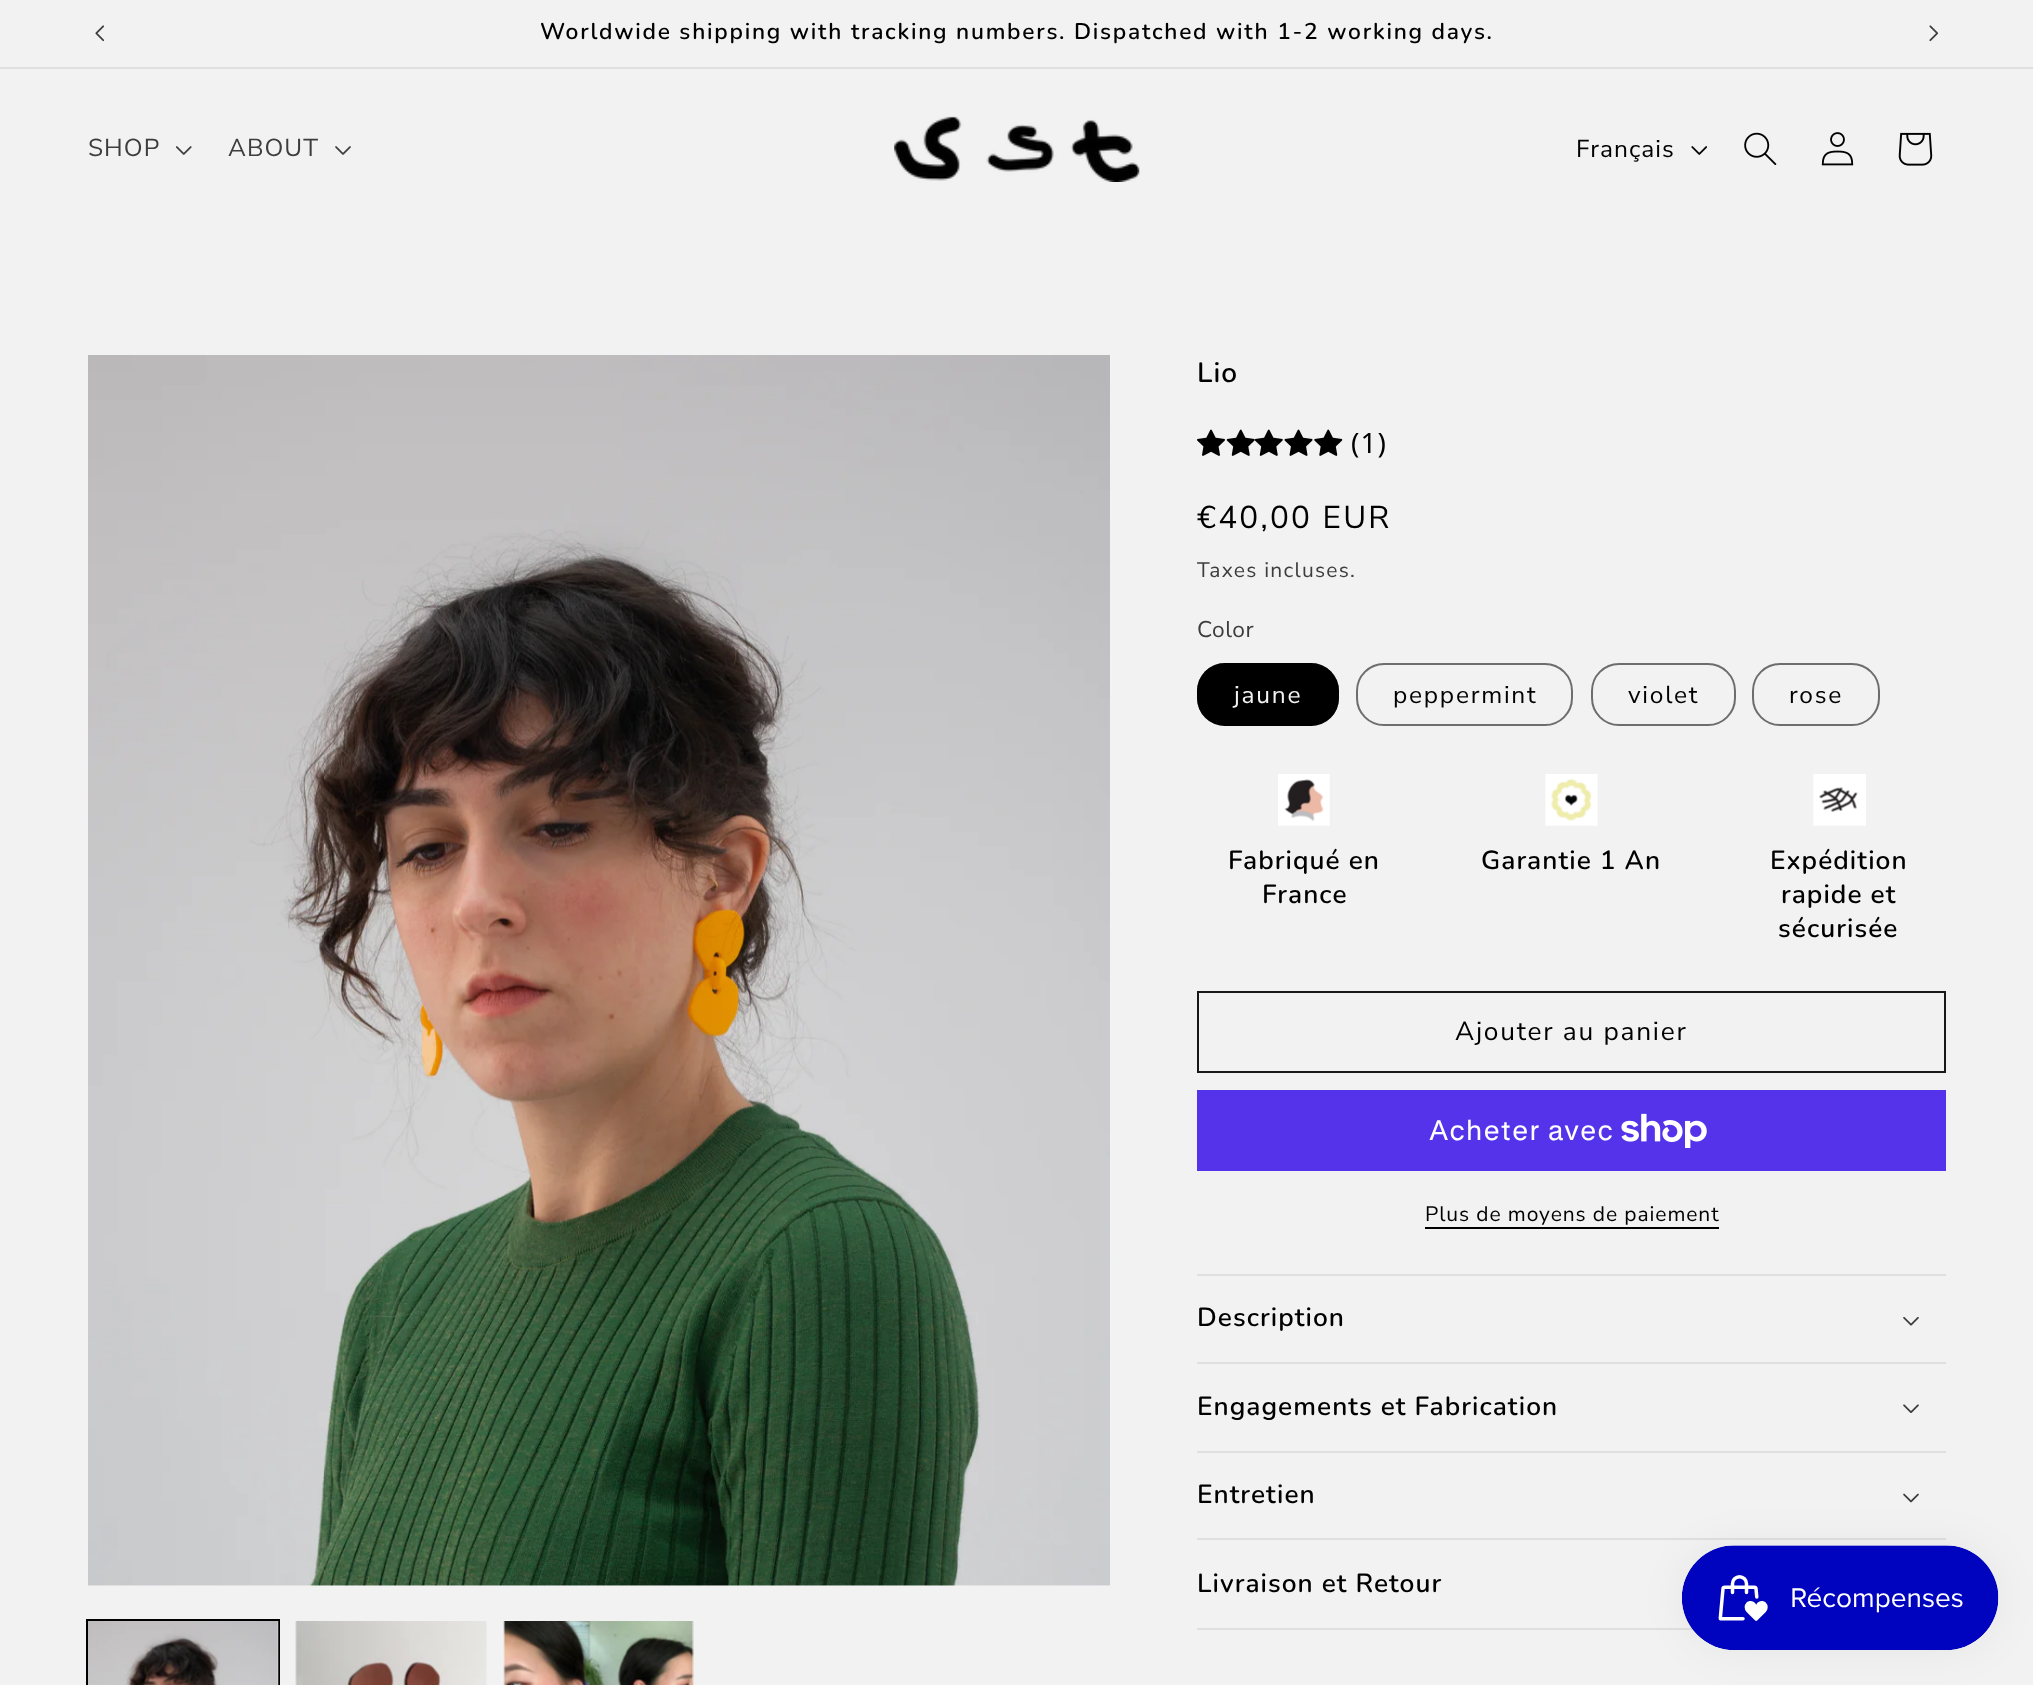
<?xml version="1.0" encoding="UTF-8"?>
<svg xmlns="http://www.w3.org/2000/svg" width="2033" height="1685">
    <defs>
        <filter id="blur1" x="-50%" y="-200%" width="200%" height="500%"><feGaussianBlur stdDeviation="22"/></filter>
    </defs>
    <rect width="100%" height="100%" fill="#F2F2F2"/>
    <rect x="0" y="67" width="2033" height="2" fill="#DFDFDF"/>
    <image x="95" y="25" width="10" height="17" href="img_01.png"/>
    <text x="540" y="39" font-family="Nunito" font-size="22.75" font-weight="600" letter-spacing="1.75" fill="#000000">Worldwide shipping with tracking numbers. Dispatched with 1-2 working days.</text>
    <image x="1929" y="25" width="10" height="17" href="img_02.png"/>
    <text x="88" y="156" font-family="Nunito Sans" font-size="24.5" letter-spacing="1.05" fill="#3D3D3D">SHOP</text>
    <image x="176" y="146" width="16" height="9" href="img_03.png"/>
    <text x="228" y="156" font-family="Nunito Sans" font-size="24.5" letter-spacing="1.05" fill="#3D3D3D">ABOUT</text>
    <image x="335" y="146" width="16" height="9" href="img_04.png"/>
    <image x="894" y="116" width="246" height="66" href="img_05.png"/>
    <text x="1576" y="157" font-family="Nunito Sans" font-size="24.5" letter-spacing="1.05" fill="#000000">Français</text>
    <image x="1691" y="146" width="16" height="9" href="img_06.png"/>
    <image x="1744" y="132" width="33" height="34" href="img_07.png"/>
    <image x="1821" y="132" width="33" height="34" href="img_08.png"/>
    <image x="1898" y="132" width="35" height="34" href="img_09.png"/>
    <image x="88" y="355" width="1022" height="1231" href="img_10.png"/>
    <rect x="87" y="1620" width="192" height="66" fill="none" stroke="#000000" stroke-width="2"/>
    <image x="88" y="1621" width="191" height="64" href="img_11.png"/>
    <image x="295" y="1621" width="192" height="64" href="img_12.png"/>
    <image x="503" y="1621" width="191" height="64" href="img_13.png"/>
    <text x="1197" y="382" font-family="Nunito" font-size="28" font-weight="600" letter-spacing="1.05" fill="#000000">Lio</text>
    <image x="1197" y="429" width="28" height="27" href="img_14.png"/>
    <image x="1226" y="429" width="29" height="27" href="img_15.png"/>
    <image x="1254" y="429" width="29" height="27" href="img_16.png"/>
    <image x="1284" y="429" width="29" height="27" href="img_17.png"/>
    <image x="1314" y="429" width="29" height="27" href="img_18.png"/>
    <text x="1351" y="453" font-family="Noto Sans" font-size="28" letter-spacing="1.05" fill="#000000">(1)</text>
    <text x="1197" y="528" font-family="Nunito Sans" font-size="31.5" letter-spacing="2.25" fill="#000000">€40,00 EUR</text>
    <text x="1197" y="577" font-family="Nunito Sans" font-size="21" letter-spacing="1.25" fill="#3D3D3D">Taxes incluses.</text>
    <text x="1197" y="637" font-family="Nunito Sans" font-size="22.75" letter-spacing="0.5" fill="#3D3D3D">Color</text>
    <rect x="1197" y="663" width="142" height="63" rx="28" fill="#000000"/>
    <rect x="1198" y="664" width="140" height="61" rx="27" fill="none" stroke="#000000" stroke-opacity="0.55" stroke-width="2"/>
    <text x="1234" y="703" font-family="Nunito Sans" font-size="24.5" letter-spacing="1.75" fill="#F2F2F2">jaune</text>
    <rect x="1357" y="664" width="215" height="61" rx="27" fill="none" stroke="#6D6D6D" stroke-width="2"/>
    <text x="1393" y="703" font-family="Nunito Sans" font-size="24.5" letter-spacing="1.75" fill="#000000">peppermint</text>
    <rect x="1592" y="664" width="143" height="61" rx="27" fill="none" stroke="#6D6D6D" stroke-width="2"/>
    <text x="1628" y="703" font-family="Nunito Sans" font-size="24.5" letter-spacing="1.75" fill="#000000">violet</text>
    <rect x="1753" y="664" width="126" height="61" rx="27" fill="none" stroke="#6D6D6D" stroke-width="2"/>
    <text x="1789" y="703" font-family="Nunito Sans" font-size="24.5" letter-spacing="1.75" fill="#000000">rose</text>
    <image x="1278" y="774" width="52" height="52" href="img_19.png"/>
    <text x="1228" y="869" font-family="Nunito" font-size="26.25" font-weight="600" letter-spacing="1.05" fill="#000000">Fabriqué en</text>
    <text x="1262" y="903" font-family="Nunito" font-size="26.25" font-weight="600" letter-spacing="1.05" fill="#000000">France</text>
    <image x="1545" y="774" width="53" height="52" href="img_20.png"/>
    <text x="1481" y="869" font-family="Nunito" font-size="26.25" font-weight="600" letter-spacing="1.05" fill="#000000">Garantie 1 An</text>
    <image x="1813" y="774" width="53" height="52" href="img_21.png"/>
    <text x="1770" y="869" font-family="Nunito" font-size="26.25" font-weight="600" letter-spacing="1.05" fill="#000000">Expédition</text>
    <text x="1781" y="903" font-family="Nunito" font-size="26.25" font-weight="600" letter-spacing="1.05" fill="#000000">rapide et</text>
    <text x="1778" y="937" font-family="Nunito" font-size="26.25" font-weight="600" letter-spacing="1.05" fill="#000000">sécurisée</text>
    <rect x="1198" y="992" width="747" height="80" fill="none" stroke="#181818" stroke-width="2"/>
    <text x="1455" y="1040" font-family="Nunito Sans" font-size="26.25" letter-spacing="1.75" fill="#000000">Ajouter au panier</text>
    <rect x="1197" y="1090" width="749" height="81" fill="#5433EB"/>
    <text x="1429" y="1140" font-family="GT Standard" font-size="28" letter-spacing="1.05" fill="#FFFFFF">Acheter avec</text>
    <image x="1621" y="1113" width="86" height="35" href="img_22.png"/>
    <text x="1425" y="1221" font-family="Nunito Sans" font-size="21" letter-spacing="0.9" fill="#000000">Plus de moyens de paiement</text>
    <rect x="1425" y="1227" width="294" height="2" fill="#000000"/>
    <rect x="1197" y="1274" width="749" height="2" fill="#DFDFDF"/>
    <rect x="1197" y="1362" width="749" height="2" fill="#DFDFDF"/>
    <text x="1197" y="1326" font-family="Nunito" font-size="26.25" font-weight="600" letter-spacing="1.05" fill="#000000">Description</text>
    <image x="1903" y="1317" width="16" height="9" href="img_23.png"/>
    <rect x="1197" y="1451" width="749" height="2" fill="#DFDFDF"/>
    <text x="1197" y="1415" font-family="Nunito" font-size="26.25" font-weight="600" letter-spacing="1.05" fill="#000000">Engagements et Fabrication</text>
    <image x="1903" y="1404" width="16" height="9" href="img_24.png"/>
    <rect x="1197" y="1538" width="749" height="2" fill="#DFDFDF"/>
    <text x="1197" y="1503" font-family="Nunito" font-size="26.25" font-weight="600" letter-spacing="1.05" fill="#000000">Entretien</text>
    <image x="1903" y="1493" width="16" height="10" href="img_25.png"/>
    <rect x="1197" y="1628" width="496" height="2" fill="#DFDFDF"/>
    <text x="1197" y="1592" font-family="Nunito" font-size="26.25" font-weight="600" letter-spacing="1.05" fill="#000000">Livraison et Retour</text>
    <rect x="1682" y="1545" width="317" height="105" rx="52.5" fill="#000000" fill-opacity="0.05" filter="url(#blur1)"/>
    <image x="1682" y="1545" width="317" height="105" href="img_26.png"/>
</svg>
